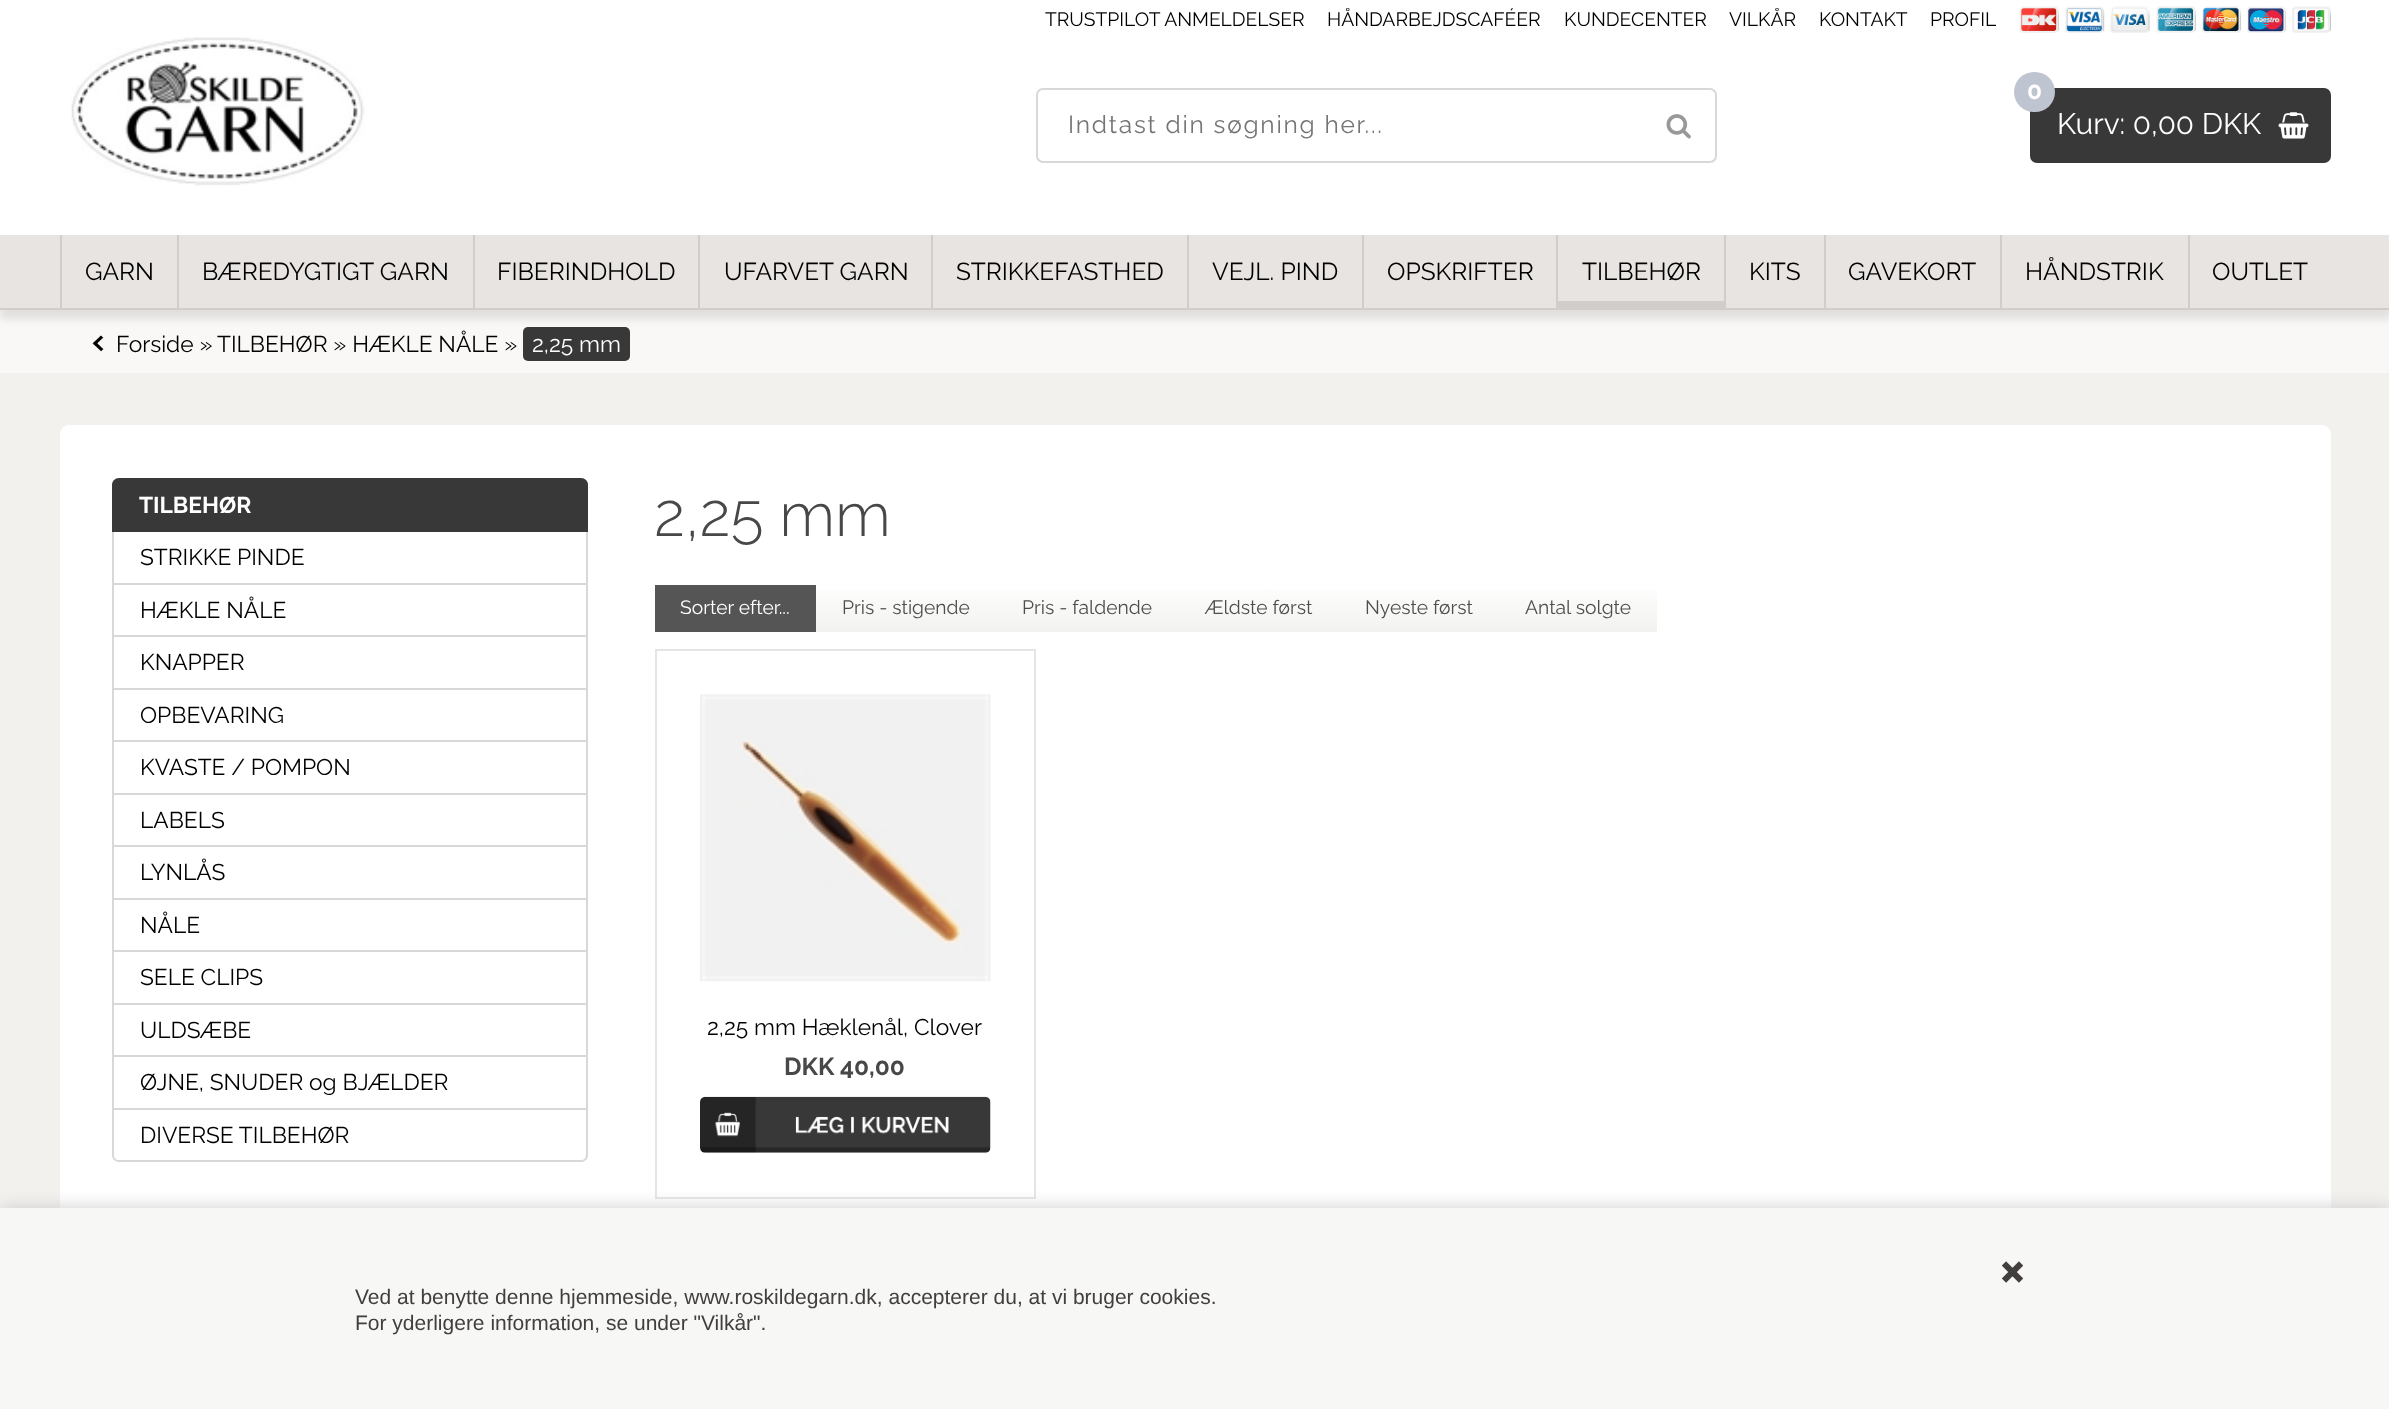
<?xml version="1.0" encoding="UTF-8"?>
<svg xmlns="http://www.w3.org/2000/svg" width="2389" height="1409">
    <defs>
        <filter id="blur1" x="-50%" y="-200%" width="200%" height="500%"><feGaussianBlur stdDeviation="4.5"/></filter>
        <linearGradient id="g1" gradientUnits="userSpaceOnUse" x1="1156" y1="584" x2="1156" y2="632"><stop offset="0" stop-color="#FEFEFE"/><stop offset="1" stop-color="#F2F2F0"/></linearGradient>
        <filter id="blur2" x="-50%" y="-200%" width="200%" height="500%"><feGaussianBlur stdDeviation="9"/></filter>
    </defs>
    <rect width="100%" height="100%" fill="#F3F1EE"/>
    <rect x="0" y="310" width="2389" height="63" fill="#F9F8F7"/>
    <rect x="523" y="327" width="107" height="34" rx="5" fill="#383838"/>
    <rect x="0" y="243" width="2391" height="76" fill="#000000" fill-opacity="0.1" filter="url(#blur1)"/>
    <rect x="0" y="0" width="2389" height="235" fill="#FFFFFF"/>
    <text x="1045" y="26" font-family="Raleway" font-size="19.25" fill="#000000">TRUSTPILOT ANMELDELSER</text>
    <text x="1327" y="26" font-family="Raleway" font-size="19.25" fill="#000000">HÅNDARBEJDSCAFÉER</text>
    <text x="1564" y="26" font-family="Raleway" font-size="19.25" fill="#000000">KUNDECENTER</text>
    <text x="1729" y="26" font-family="Raleway" font-size="19.25" fill="#000000">VILKÅR</text>
    <text x="1819" y="26" font-family="Raleway" font-size="19.25" fill="#000000">KONTAKT</text>
    <text x="1930" y="26" font-family="Raleway" font-size="19.25" fill="#000000">PROFIL</text>
    <image x="2019" y="6" width="312" height="27" href="img_01.png"/>
    <image x="71" y="37" width="294" height="149" href="img_02.png"/>
    <rect x="1037" y="89" width="679" height="73" rx="6" fill="none" stroke="#D8D8D8" stroke-width="2"/>
    <text x="1068" y="133" font-family="Raleway" font-size="24.5" letter-spacing="1.75" fill="#757575">Indtast din søgning her...</text>
    <image x="1666" y="114" width="25" height="25" href="img_03.png"/>
    <rect x="2030" y="88" width="301" height="75" rx="7" fill="#383838"/>
    <rect x="2014" y="72" width="41" height="40" rx="20" fill="#BEC5D1"/>
    <text x="2027" y="99" font-family="Raleway" font-size="24.5" font-weight="700" fill="#FFFFFF">0</text>
    <text x="2057" y="134" font-family="Raleway" font-size="29.75" fill="#FFFFFF">Kurv: 0,00 DKK</text>
    <image x="2278" y="112" width="31" height="27" href="img_04.png"/>
    <rect x="0" y="235" width="2389" height="73" fill="#E8E4E1"/>
    <rect x="0" y="308" width="2389" height="2" fill="#D1CDCB"/>
    <rect x="60" y="235" width="2" height="73" fill="#D1CDCB"/>
    <text x="85" y="280" font-family="Raleway" font-size="24.5" fill="#000000">GARN</text>
    <rect x="177" y="235" width="2" height="73" fill="#D1CDCB"/>
    <text x="202" y="280" font-family="Raleway" font-size="24.5" fill="#000000">BÆREDYGTIGT GARN</text>
    <rect x="473" y="235" width="2" height="73" fill="#D1CDCB"/>
    <text x="497" y="280" font-family="Raleway" font-size="24.5" fill="#000000">FIBERINDHOLD</text>
    <rect x="698" y="235" width="2" height="73" fill="#D1CDCB"/>
    <text x="724" y="280" font-family="Raleway" font-size="24.5" fill="#000000">UFARVET GARN</text>
    <rect x="931" y="235" width="2" height="73" fill="#D1CDCB"/>
    <text x="956" y="280" font-family="Raleway" font-size="24.5" fill="#000000">STRIKKEFASTHED</text>
    <rect x="1187" y="235" width="2" height="73" fill="#D1CDCB"/>
    <text x="1212" y="280" font-family="Raleway" font-size="24.5" fill="#000000">VEJL. PIND</text>
    <rect x="1362" y="235" width="2" height="73" fill="#D1CDCB"/>
    <text x="1387" y="280" font-family="Raleway" font-size="24.5" fill="#000000">OPSKRIFTER</text>
    <rect x="1556" y="235" width="2" height="73" fill="#D1CDCB"/>
    <text x="1582" y="280" font-family="Raleway" font-size="24.5" fill="#000000">TILBEHØR</text>
    <rect x="1558" y="301" width="166" height="7" fill="#D1CDCB"/>
    <rect x="1724" y="235" width="2" height="73" fill="#D1CDCB"/>
    <text x="1749" y="280" font-family="Raleway" font-size="24.5" fill="#000000">KITS</text>
    <rect x="1824" y="235" width="2" height="73" fill="#D1CDCB"/>
    <text x="1848" y="280" font-family="Raleway" font-size="24.5" fill="#000000">GAVEKORT</text>
    <rect x="2000" y="235" width="2" height="73" fill="#D1CDCB"/>
    <text x="2025" y="280" font-family="Raleway" font-size="24.5" fill="#000000">HÅNDSTRIK</text>
    <rect x="2188" y="235" width="2" height="73" fill="#D1CDCB"/>
    <text x="2212" y="280" font-family="Raleway" font-size="24.5" fill="#000000">OUTLET</text>
    <image x="92" y="335" width="12" height="17" href="img_05.png"/>
    <text x="116" y="352" font-family="Raleway" font-size="22.75" fill="#000000">Forside »</text>
    <text x="217" y="352" font-family="Raleway" font-size="22.75" fill="#000000">TILBEHØR » HÆKLE NÅLE »</text>
    <text x="532" y="352" font-family="Raleway" font-size="22.75" fill="#FFFFFF">2,25 mm</text>
    <rect x="60" y="425" width="2271" height="921" rx="9" fill="#FFFFFF"/>
    <path d="M 119 478 H 581 C 585 478 588 481 588 485 V 532 H 112 V 485 C 112 481 115 478 119 478 Z" fill="#383838"/>
    <text x="139" y="513" font-family="Raleway" font-size="22.75" font-weight="700" fill="#FFFFFF">TILBEHØR</text>
    <rect x="586" y="532" width="2" height="578" fill="#D8D8D8"/>
    <rect x="112" y="583" width="476" height="2" fill="#D8D8D8"/>
    <rect x="112" y="532" width="2" height="53" fill="#D8D8D8"/>
    <text x="140" y="565" font-family="Raleway" font-size="22.75" fill="#000000">STRIKKE PINDE</text>
    <rect x="112" y="635" width="476" height="2" fill="#D8D8D8"/>
    <rect x="112" y="585" width="2" height="52" fill="#D8D8D8"/>
    <text x="140" y="618" font-family="Raleway" font-size="22.75" fill="#000000">HÆKLE NÅLE</text>
    <rect x="112" y="688" width="476" height="2" fill="#D8D8D8"/>
    <rect x="112" y="637" width="2" height="53" fill="#D8D8D8"/>
    <text x="140" y="670" font-family="Raleway" font-size="22.75" fill="#000000">KNAPPER</text>
    <rect x="112" y="740" width="476" height="2" fill="#D8D8D8"/>
    <rect x="112" y="690" width="2" height="52" fill="#D8D8D8"/>
    <text x="140" y="723" font-family="Raleway" font-size="22.75" fill="#000000">OPBEVARING</text>
    <rect x="112" y="793" width="476" height="2" fill="#D8D8D8"/>
    <rect x="112" y="742" width="2" height="53" fill="#D8D8D8"/>
    <text x="140" y="775" font-family="Raleway" font-size="22.75" fill="#000000">KVASTE / POMPON</text>
    <rect x="112" y="845" width="476" height="2" fill="#D8D8D8"/>
    <rect x="112" y="795" width="2" height="52" fill="#D8D8D8"/>
    <text x="140" y="828" font-family="Raleway" font-size="22.75" fill="#000000">LABELS</text>
    <rect x="112" y="898" width="476" height="2" fill="#D8D8D8"/>
    <rect x="112" y="847" width="2" height="53" fill="#D8D8D8"/>
    <text x="140" y="880" font-family="Raleway" font-size="22.75" fill="#000000">LYNLÅS</text>
    <rect x="112" y="950" width="476" height="2" fill="#D8D8D8"/>
    <rect x="112" y="900" width="2" height="52" fill="#D8D8D8"/>
    <text x="140" y="933" font-family="Raleway" font-size="22.75" fill="#000000">NÅLE</text>
    <rect x="112" y="1003" width="476" height="2" fill="#D8D8D8"/>
    <rect x="112" y="952" width="2" height="53" fill="#D8D8D8"/>
    <text x="140" y="985" font-family="Raleway" font-size="22.75" fill="#000000">SELE CLIPS</text>
    <rect x="112" y="1055" width="476" height="2" fill="#D8D8D8"/>
    <rect x="112" y="1005" width="2" height="52" fill="#D8D8D8"/>
    <text x="140" y="1038" font-family="Raleway" font-size="22.75" fill="#000000">ULDSÆBE</text>
    <rect x="112" y="1108" width="476" height="2" fill="#D8D8D8"/>
    <rect x="112" y="1057" width="2" height="53" fill="#D8D8D8"/>
    <text x="140" y="1090" font-family="Raleway" font-size="22.75" fill="#000000">ØJNE, SNUDER og BJÆLDER</text>
    <path d="M 112 1110 H 588 V 1155 C 588 1159 585 1162 581 1162 H 119 C 115 1162 112 1159 112 1155 Z M 114 1110 H 586 V 1155 C 586 1158 584 1160 581 1160 H 119 C 116 1160 114 1158 114 1155 Z" fill="#D8D8D8" fill-rule="evenodd"/>
    <text x="140" y="1143" font-family="Raleway" font-size="22.75" fill="#000000">DIVERSE TILBEHØR</text>
    <text x="654" y="536" font-family="Raleway" font-size="61" font-weight="300" fill="#484848">2,25 mm</text>
    <rect x="816" y="589" width="841" height="43" fill="url(#g1)"/>
    <rect x="655" y="585" width="161" height="47" fill="#555555"/>
    <text x="680" y="614" font-family="Raleway" font-size="19.25" fill="#FFFFFF">Sorter efter...</text>
    <text x="842" y="614" font-family="Raleway" font-size="19.25" fill="#4E4E4E">Pris - stigende</text>
    <text x="1022" y="614" font-family="Raleway" font-size="19.25" fill="#4E4E4E">Pris - faldende</text>
    <text x="1205" y="614" font-family="Raleway" font-size="19.25" fill="#4E4E4E">Ældste først</text>
    <text x="1365" y="614" font-family="Raleway" font-size="19.25" fill="#4E4E4E">Nyeste først</text>
    <text x="1525" y="614" font-family="Raleway" font-size="19.25" fill="#4E4E4E">Antal solgte</text>
    <rect x="656" y="650" width="379" height="548" fill="none" stroke="#E5E5E5" stroke-width="2"/>
    <image x="700" y="694" width="291" height="288" href="img_06.png"/>
    <text x="707" y="1035" font-family="Raleway" font-size="22.75" fill="#000000">2,25 mm Hæklenål, Clover</text>
    <text x="784" y="1075" font-family="Raleway" font-size="24.5" font-weight="700" fill="#484848">DKK 40,00</text>
    <image x="700" y="1096" width="291" height="57" href="img_07.png"/>
    <rect x="0" y="1208" width="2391" height="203" fill="#CCCCCC" filter="url(#blur2)"/>
    <rect x="0" y="1208" width="2389" height="201" fill="#F7F7F5"/>
    <image x="2001" y="1261" width="23" height="22" href="img_08.png"/>
    <text font-family="Liberation Sans" font-size="21" fill="#423E3E">
        <tspan x="355" y="1304">Ved at benytte denne hjemmeside, www.roskildegarn.dk, accepterer du, at vi bruger cookies.</tspan>
        <tspan x="355" y="1330">For yderligere information, se under "Vilkår".</tspan>
    </text>
</svg>
